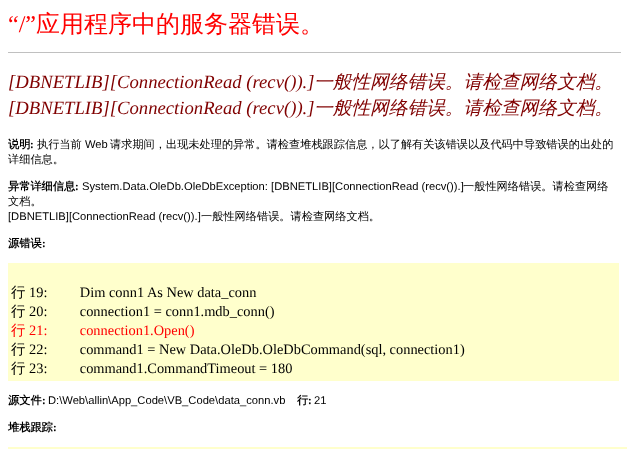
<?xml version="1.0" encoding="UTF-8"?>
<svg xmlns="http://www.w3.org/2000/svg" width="627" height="449">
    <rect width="100%" height="100%" fill="#FFFFFF"/>
    <text x="8" y="32" font-family="Liberation Serif" font-size="24" fill="#FF0000">“/”</text>
    <text x="36" y="32" font-family="WenQuanYi Zen Hei" font-size="24" font-weight="500" fill="#FF0000">应用程序中的服务器错误。</text>
    <rect x="8" y="52" width="613" height="1" fill="#C0C0C0"/>
    <text x="8" y="88" font-family="Liberation Serif" font-size="18.7" font-style="italic" fill="#800000">[DBNETLIB][ConnectionRead (recv()).]</text>
    <text x="314" y="88" font-family="WenQuanYi Zen Hei" font-size="18.7" font-weight="500" font-style="italic" fill="#800000">一般性网络错误。请检查网络文档。</text>
    <text x="8" y="114" font-family="Liberation Serif" font-size="18.7" font-style="italic" fill="#800000">[DBNETLIB][ConnectionRead (recv()).]</text>
    <text x="314" y="114" font-family="WenQuanYi Zen Hei" font-size="18.7" font-weight="500" font-style="italic" fill="#800000">一般性网络错误。请检查网络文档。</text>
    <text x="8" y="148" font-family="WenQuanYi Zen Hei" font-size="11.2" font-weight="700" fill="#000000">说明</text>
    <text x="30" y="148" font-family="Liberation Serif" font-size="11.2" font-weight="700" fill="#000000">:</text>
    <text x="37" y="148" font-family="WenQuanYi Zen Hei" font-size="11.2" font-weight="500" fill="#000000">执行当前</text>
    <text x="85" y="148" font-family="Liberation Sans" font-size="11.2" fill="#000000">Web</text>
    <text x="110" y="148" font-family="WenQuanYi Zen Hei" font-size="11.2" font-weight="500" fill="#000000">请求期间，出现未处理的异常。请检查堆栈跟踪信息，以了解有关该错误以及代码中导致错误的出处的</text>
    <text x="8" y="163" font-family="WenQuanYi Zen Hei" font-size="11.2" font-weight="500" fill="#000000">详细信息。</text>
    <text x="8" y="190" font-family="WenQuanYi Zen Hei" font-size="11.2" font-weight="700" fill="#000000">异常详细信息</text>
    <text x="75" y="190" font-family="Liberation Serif" font-size="11.2" font-weight="700" fill="#000000">:</text>
    <text x="82" y="190" font-family="Liberation Sans" font-size="11.2" fill="#000000">System.Data.OleDb.OleDbException: [DBNETLIB][ConnectionRead (recv()).]</text>
    <text x="463" y="190" font-family="WenQuanYi Zen Hei" font-size="11.2" font-weight="500" fill="#000000">一般性网络错误。请检查网络</text>
    <text x="8" y="205" font-family="WenQuanYi Zen Hei" font-size="11.2" font-weight="500" fill="#000000">文档。</text>
    <text x="8" y="220" font-family="Liberation Sans" font-size="11.2" fill="#000000">[DBNETLIB][ConnectionRead (recv()).]</text>
    <text x="201" y="220" font-family="WenQuanYi Zen Hei" font-size="11.2" font-weight="500" fill="#000000">一般性网络错误。请检查网络文档。</text>
    <text x="8" y="247" font-family="WenQuanYi Zen Hei" font-size="11.2" font-weight="700" fill="#000000">源错误</text>
    <text x="42" y="247" font-family="Liberation Serif" font-size="11.2" font-weight="700" fill="#000000">:</text>
    <rect x="8" y="263" width="611" height="118" fill="#FFFFCC"/>
    <text x="11" y="297" font-family="WenQuanYi Zen Hei" font-size="14.4" font-weight="500" fill="#000000">行</text>
    <text x="29" y="297" font-family="Liberation Serif" font-size="14.4" fill="#000000" xml:space="preserve">19:         Dim conn1 As New data_conn</text>
    <text x="11" y="316" font-family="WenQuanYi Zen Hei" font-size="14.4" font-weight="500" fill="#000000">行</text>
    <text x="29" y="316" font-family="Liberation Serif" font-size="14.4" fill="#000000" xml:space="preserve">20:         connection1 = conn1.mdb_conn()</text>
    <text x="11" y="335" font-family="WenQuanYi Zen Hei" font-size="14.4" font-weight="500" fill="#FF0000">行</text>
    <text x="29" y="335" font-family="Liberation Serif" font-size="14.4" fill="#FF0000" xml:space="preserve">21:         connection1.Open()</text>
    <text x="11" y="354" font-family="WenQuanYi Zen Hei" font-size="14.4" font-weight="500" fill="#000000">行</text>
    <text x="29" y="354" font-family="Liberation Serif" font-size="14.4" fill="#000000" xml:space="preserve">22:         command1 = New Data.OleDb.OleDbCommand(sql, connection1)</text>
    <text x="11" y="373" font-family="WenQuanYi Zen Hei" font-size="14.4" font-weight="500" fill="#000000">行</text>
    <text x="29" y="373" font-family="Liberation Serif" font-size="14.4" fill="#000000" xml:space="preserve">23:         command1.CommandTimeout = 180</text>
    <text x="8" y="404" font-family="WenQuanYi Zen Hei" font-size="11.2" font-weight="700" fill="#000000">源文件</text>
    <text x="42" y="404" font-family="Liberation Serif" font-size="11.2" font-weight="700" fill="#000000">:</text>
    <text x="48" y="404" font-family="Liberation Sans" font-size="11.2" fill="#000000">D:\Web\allin\App_Code\VB_Code\data_conn.vb</text>
    <text x="297" y="404" font-family="WenQuanYi Zen Hei" font-size="11.2" font-weight="700" fill="#000000">行</text>
    <text x="308" y="404" font-family="Liberation Serif" font-size="11.2" font-weight="700" fill="#000000">:</text>
    <text x="314" y="404" font-family="Liberation Sans" font-size="11.2" fill="#000000">21</text>
    <text x="8" y="431" font-family="WenQuanYi Zen Hei" font-size="11.2" font-weight="700" fill="#000000">堆栈跟踪</text>
    <text x="53" y="431" font-family="Liberation Serif" font-size="11.2" font-weight="700" fill="#000000">:</text>
    <rect x="8" y="447" width="619" height="2" fill="#FFFFCC"/>
</svg>
